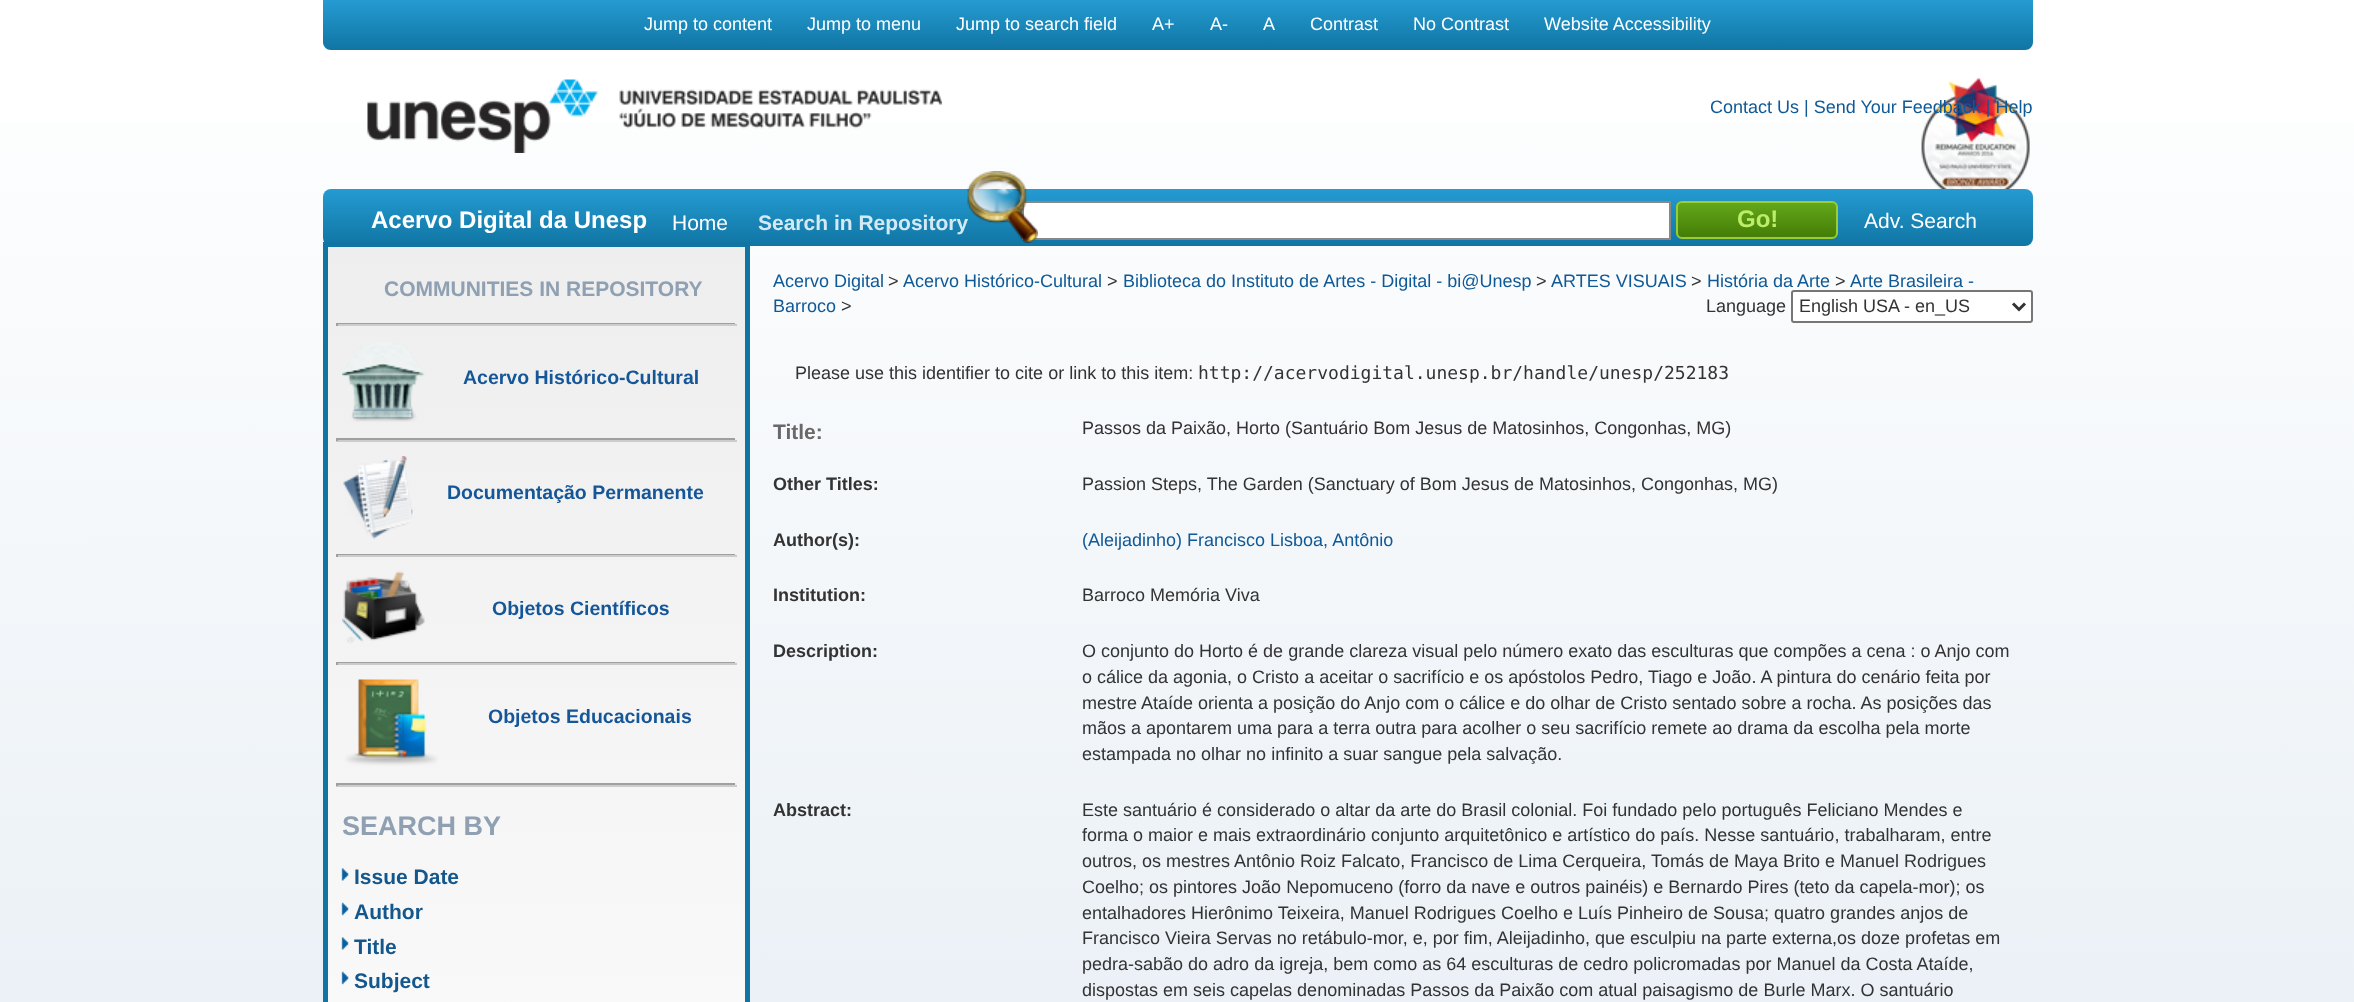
<?xml version="1.0" encoding="UTF-8"?>
<svg xmlns="http://www.w3.org/2000/svg" width="2354" height="1002">
    <defs>
        <linearGradient id="g1" gradientUnits="userSpaceOnUse" x1="1177" y1="0" x2="1178" y2="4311"><stop offset="0" stop-color="#FFFFFF"/><stop offset="1" stop-color="#A7C1D8"/></linearGradient>
        <linearGradient id="g2" gradientUnits="userSpaceOnUse" x1="1178" y1="0" x2="1178" y2="50"><stop offset="0" stop-color="#259BD2"/><stop offset="1" stop-color="#1075A3"/></linearGradient>
        <linearGradient id="g3" gradientUnits="userSpaceOnUse" x1="1178" y1="189" x2="1178" y2="246"><stop offset="0" stop-color="#259BD2"/><stop offset="1" stop-color="#1075A3"/></linearGradient>
        <clipPath id="clip1"><rect x="1676" y="201" width="162" height="38" rx="6"/></clipPath>
        <linearGradient id="g4" gradientUnits="userSpaceOnUse" x1="1757" y1="203" x2="1757" y2="237"><stop offset="0" stop-color="#63A71A"/><stop offset="1" stop-color="#447D07"/></linearGradient>
        <linearGradient id="g5" gradientUnits="userSpaceOnUse" x1="536" y1="246" x2="536" y2="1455"><stop offset="0" stop-color="#EEEEEE"/><stop offset="1" stop-color="#FFFFFF"/></linearGradient>
    </defs>
    <rect width="100%" height="100%" fill="#FFFFFF"/>
    <rect x="0" y="122" width="2354" height="880" fill="url(#g1)"/>
    <path d="M 323 0 H 2033 V 42 C 2033 46.5 2029.5 50 2025 50 H 331 C 326.5 50 323 46.5 323 42 Z" fill="url(#g2)"/>
    <text x="644" y="30" font-family="Liberation Sans" font-size="18" fill="#FFFFFF">Jump to content</text>
    <text x="807" y="30" font-family="Liberation Sans" font-size="18" fill="#FFFFFF">Jump to menu</text>
    <text x="956" y="30" font-family="Liberation Sans" font-size="18" fill="#FFFFFF">Jump to search field</text>
    <text x="1152" y="30" font-family="Liberation Sans" font-size="18" fill="#FFFFFF">A+</text>
    <text x="1210" y="30" font-family="Liberation Sans" font-size="18" fill="#FFFFFF">A-</text>
    <text x="1263" y="30" font-family="Liberation Sans" font-size="18" fill="#FFFFFF">A</text>
    <text x="1310" y="30" font-family="Liberation Sans" font-size="18" fill="#FFFFFF">Contrast</text>
    <text x="1413" y="30" font-family="Liberation Sans" font-size="18" fill="#FFFFFF">No Contrast</text>
    <text x="1544" y="30" font-family="Liberation Sans" font-size="18" fill="#FFFFFF">Website Accessibility</text>
    <image x="367" y="79" width="575" height="74" href="img_01.png"/>
    <image x="1921" y="77" width="109" height="112" href="img_02.png"/>
    <text x="1710" y="113" font-family="Liberation Sans" font-size="18" fill="#0F5997">Contact Us | Send Your Feedback | Help</text>
    <text x="1706" y="312" font-family="Liberation Sans" font-size="18" fill="#333333">Language</text>
    <rect x="1792" y="291" width="240" height="31" rx="2" fill="#FFFFFF" stroke="#767676" stroke-width="2"/>
    <path d="M 2013 303.5 L 2019 309.5 L 2025 303.5" fill="none" stroke="#333333" stroke-width="3"/>
    <text x="1799" y="312" font-family="Liberation Sans" font-size="18" fill="#333333">English USA - en_US</text>
    <rect x="323" y="189" width="1710" height="57" rx="8" fill="url(#g3)"/>
    <text x="371" y="228" font-family="Liberation Sans" font-size="24" font-weight="700" fill="#FFFFFF">Acervo Digital da Unesp</text>
    <text x="672" y="230" font-family="Liberation Sans" font-size="21" fill="#FFFFFF">Home</text>
    <text x="758" y="230" font-family="Liberation Sans" font-size="21" font-weight="700" fill="#D3EAF5">Search in Repository</text>
    <rect x="1023" y="202" width="647" height="37" fill="#FFFFFF" stroke="#888888" stroke-width="2"/>
    <image x="967" y="171" width="71" height="72" href="img_03.png"/>
    <g clip-path="url(#clip1)">
        <rect x="1676" y="203" width="162" height="34" fill="url(#g4)"/>
    </g>
    <rect x="1677" y="202" width="160" height="36" rx="5" fill="none" stroke="#9ACD32" stroke-width="2"/>
    <text x="1737" y="227" font-family="Liberation Sans" font-size="24" font-weight="700" fill="#BCEE68">Go!</text>
    <text x="1864" y="228" font-family="Liberation Sans" font-size="21" fill="#FFFFFF">Adv. Search</text>
    <rect x="328" y="247" width="417" height="755" fill="url(#g5)"/>
    <rect x="325.5" y="244.5" width="422" height="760" fill="none" stroke="#1075A3" stroke-width="5"/>
    <text x="384" y="296" font-family="Liberation Sans" font-size="21" font-weight="700" fill="#8EA0B2">COMMUNITIES IN REPOSITORY</text>
    <rect x="336" y="323" width="401" height="1" fill="#A09EA1"/>
    <rect x="735" y="323" width="2" height="3" fill="#EEEEEE"/>
    <rect x="336" y="324" width="401" height="2" fill="#CCCCCC"/>
    <rect x="336" y="323" width="2" height="3" fill="#9F9F9F"/>
    <image x="342" y="342" width="83" height="80" href="img_04.png"/>
    <text x="463" y="384" font-family="Liberation Sans" font-size="19.5" font-weight="700" fill="#155698">Acervo Histórico-Cultural</text>
    <rect x="336" y="438" width="401" height="2" fill="#A09EA1"/>
    <rect x="735" y="438" width="2" height="3" fill="#EEEEEE"/>
    <rect x="336" y="440" width="401" height="2" fill="#CCCCCC"/>
    <rect x="336" y="438" width="2" height="3" fill="#9F9F9F"/>
    <image x="343" y="456" width="70" height="83" href="img_05.png"/>
    <text x="447" y="499" font-family="Liberation Sans" font-size="19.5" font-weight="700" fill="#155698">Documentação Permanente</text>
    <rect x="336" y="554" width="401" height="1" fill="#A09EA1"/>
    <rect x="735" y="554" width="2" height="3" fill="#EEEEEE"/>
    <rect x="336" y="555" width="401" height="2" fill="#CCCCCC"/>
    <rect x="336" y="554" width="2" height="3" fill="#9F9F9F"/>
    <image x="342" y="571" width="83" height="73" href="img_06.png"/>
    <text x="492" y="615" font-family="Liberation Sans" font-size="19.5" font-weight="700" fill="#155698">Objetos Científicos</text>
    <rect x="336" y="662" width="401" height="1" fill="#A09EA1"/>
    <rect x="735" y="662" width="2" height="3" fill="#EEEEEE"/>
    <rect x="336" y="663" width="401" height="2" fill="#CCCCCC"/>
    <rect x="336" y="662" width="2" height="3" fill="#9F9F9F"/>
    <image x="345" y="679" width="93" height="87" href="img_07.png"/>
    <text x="488" y="723" font-family="Liberation Sans" font-size="19.5" font-weight="700" fill="#155698">Objetos Educacionais</text>
    <rect x="336" y="783" width="401" height="2" fill="#A09EA1"/>
    <rect x="735" y="783" width="2" height="3" fill="#EEEEEE"/>
    <rect x="336" y="785" width="401" height="2" fill="#CCCCCC"/>
    <rect x="336" y="783" width="2" height="3" fill="#9F9F9F"/>
    <text x="342" y="835" font-family="Liberation Sans" font-size="27" font-weight="700" fill="#8EA0B2">SEARCH BY</text>
    <image x="341" y="868" width="8" height="13" href="img_08.png"/>
    <text x="354" y="884" font-family="Liberation Sans" font-size="21" font-weight="700" fill="#14578C">Issue Date</text>
    <image x="341" y="902" width="8" height="14" href="img_09.png"/>
    <text x="354" y="919" font-family="Liberation Sans" font-size="21" font-weight="700" fill="#14578C">Author</text>
    <image x="341" y="937" width="8" height="13" href="img_10.png"/>
    <text x="354" y="954" font-family="Liberation Sans" font-size="21" font-weight="700" fill="#14578C">Title</text>
    <image x="341" y="971" width="8" height="14" href="img_11.png"/>
    <text x="354" y="988" font-family="Liberation Sans" font-size="21" font-weight="700" fill="#14578C">Subject</text>
    <text x="773" y="287" font-family="Liberation Sans" font-size="18" fill="#0F5997">Acervo Digital</text>
    <text x="888" y="287" font-family="Liberation Sans" font-size="18" fill="#333333">&gt;</text>
    <text x="903" y="287" font-family="Liberation Sans" font-size="18" fill="#0F5997">Acervo Histórico-Cultural</text>
    <text x="1107" y="287" font-family="Liberation Sans" font-size="18" fill="#333333">&gt;</text>
    <text x="1123" y="287" font-family="Liberation Sans" font-size="18" fill="#0F5997">Biblioteca do Instituto de Artes - Digital - bi@Unesp</text>
    <text x="1536" y="287" font-family="Liberation Sans" font-size="18" fill="#333333">&gt;</text>
    <text x="1551" y="287" font-family="Liberation Sans" font-size="18" fill="#0F5997">ARTES VISUAIS</text>
    <text x="1691" y="287" font-family="Liberation Sans" font-size="18" fill="#333333">&gt;</text>
    <text x="1707" y="287" font-family="Liberation Sans" font-size="18" fill="#0F5997">História da Arte</text>
    <text x="1835" y="287" font-family="Liberation Sans" font-size="18" fill="#333333">&gt;</text>
    <text x="1850" y="287" font-family="Liberation Sans" font-size="18" fill="#0F5997">Arte Brasileira -</text>
    <text x="773" y="312" font-family="Liberation Sans" font-size="18" fill="#0F5997">Barroco</text>
    <text x="841" y="312" font-family="Liberation Sans" font-size="18" fill="#333333">&gt;</text>
    <text x="795" y="379" font-family="Liberation Sans" font-size="18" fill="#333333">Please use this identifier to cite or link to this item:</text>
    <text x="1198" y="379" font-family="DejaVu Sans Mono" font-size="18" fill="#333333">http://acervodigital.unesp.br/handle/unesp/252183</text>
    <text x="773" y="439" font-family="Liberation Sans" font-size="21" font-weight="700" fill="#696969">Title:</text>
    <text x="1082" y="434" font-family="Liberation Sans" font-size="18" fill="#333333">Passos da Paixão, Horto (Santuário Bom Jesus de Matosinhos, Congonhas, MG)</text>
    <text x="773" y="490" font-family="Liberation Sans" font-size="18" font-weight="700" fill="#333333">Other Titles:</text>
    <text x="1082" y="490" font-family="Liberation Sans" font-size="18" fill="#333333">Passion Steps, The Garden (Sanctuary of Bom Jesus de Matosinhos, Congonhas, MG)</text>
    <text x="773" y="546" font-family="Liberation Sans" font-size="18" font-weight="700" fill="#333333">Author(s):</text>
    <text x="1082" y="546" font-family="Liberation Sans" font-size="18" fill="#0F5997">(Aleijadinho) Francisco Lisboa, Antônio</text>
    <text x="773" y="601" font-family="Liberation Sans" font-size="18" font-weight="700" fill="#333333">Institution:</text>
    <text x="1082" y="601" font-family="Liberation Sans" font-size="18" fill="#333333">Barroco Memória Viva</text>
    <text x="773" y="657" font-family="Liberation Sans" font-size="18" font-weight="700" fill="#333333">Description:</text>
    <text font-family="Liberation Sans" font-size="18" fill="#333333">
        <tspan x="1082" y="657">O conjunto do Horto é de grande clareza visual pelo número exato das esculturas que compões a cena : o Anjo com</tspan>
        <tspan x="1082" y="683">o cálice da agonia, o Cristo a aceitar o sacrifício e os apóstolos Pedro, Tiago e João. A pintura do cenário feita por</tspan>
        <tspan x="1082" y="709">mestre Ataíde orienta a posição do Anjo com o cálice e do olhar de Cristo sentado sobre a rocha. As posições das</tspan>
        <tspan x="1082" y="734">mãos a apontarem uma para a terra outra para acolher o seu sacrifício remete ao drama da escolha pela morte</tspan>
        <tspan x="1082" y="760">estampada no olhar no infinito a suar sangue pela salvação.</tspan>
    </text>
    <text x="773" y="816" font-family="Liberation Sans" font-size="18" font-weight="700" fill="#333333">Abstract:</text>
    <text font-family="Liberation Sans" font-size="18" fill="#333333">
        <tspan x="1082" y="816">Este santuário é considerado o altar da arte do Brasil colonial. Foi fundado pelo português Feliciano Mendes e</tspan>
        <tspan x="1082" y="841">forma o maior e mais extraordinário conjunto arquitetônico e artístico do país. Nesse santuário, trabalharam, entre</tspan>
        <tspan x="1082" y="867">outros, os mestres Antônio Roiz Falcato, Francisco de Lima Cerqueira, Tomás de Maya Brito e Manuel Rodrigues</tspan>
        <tspan x="1082" y="893">Coelho; os pintores João Nepomuceno (forro da nave e outros painéis) e Bernardo Pires (teto da capela-mor); os</tspan>
        <tspan x="1082" y="919">entalhadores Hierônimo Teixeira, Manuel Rodrigues Coelho e Luís Pinheiro de Sousa; quatro grandes anjos de</tspan>
        <tspan x="1082" y="944">Francisco Vieira Servas no retábulo-mor, e, por fim, Aleijadinho, que esculpiu na parte externa,os doze profetas em</tspan>
        <tspan x="1082" y="970">pedra-sabão do adro da igreja, bem como as 64 esculturas de cedro policromadas por Manuel da Costa Ataíde,</tspan>
        <tspan x="1082" y="996">dispostas em seis capelas denominadas Passos da Paixão com atual paisagismo de Burle Marx. O santuário</tspan>
    </text>
</svg>
